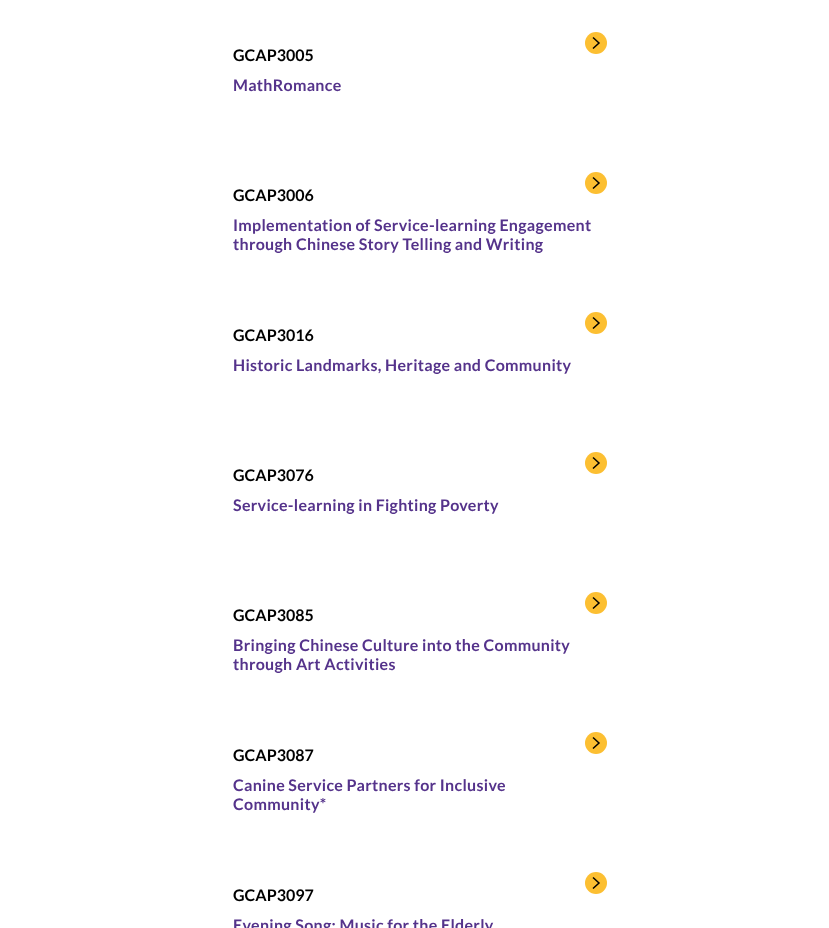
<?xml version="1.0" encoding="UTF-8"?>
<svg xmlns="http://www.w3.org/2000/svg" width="829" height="928">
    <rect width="100%" height="100%" fill="#FFFFFF"/>
    <circle cx="596" cy="43" r="11" fill="#FCBF32"/>
    <path d="M 593 48.5 L 599 43 L 593 37.5" fill="none" stroke="#000000" stroke-width="1.5"/>
    <text x="233" y="61" font-family="Lato" font-size="16" font-weight="700" fill="#000000">GCAP3005</text>
    <text x="233" y="91" font-family="Lato" font-size="16" font-weight="700" letter-spacing="0.3" fill="#55338B">MathRomance</text>
    <circle cx="596" cy="183" r="11" fill="#FCBF32"/>
    <path d="M 593 188.5 L 599 183 L 593 177.5" fill="none" stroke="#000000" stroke-width="1.5"/>
    <text x="233" y="201" font-family="Lato" font-size="16" font-weight="700" fill="#000000">GCAP3006</text>
    <text font-family="Lato" font-size="16" font-weight="700" letter-spacing="0.3" fill="#55338B">
        <tspan x="233" y="231">Implementation of Service-learning Engagement</tspan>
        <tspan x="233" y="250">through Chinese Story Telling and Writing</tspan>
    </text>
    <circle cx="596" cy="323" r="11" fill="#FCBF32"/>
    <path d="M 593 328.5 L 599 323 L 593 317.5" fill="none" stroke="#000000" stroke-width="1.5"/>
    <text x="233" y="341" font-family="Lato" font-size="16" font-weight="700" fill="#000000">GCAP3016</text>
    <text x="233" y="371" font-family="Lato" font-size="16" font-weight="700" letter-spacing="0.3" fill="#55338B">Historic Landmarks, Heritage and Community</text>
    <circle cx="596" cy="463" r="11" fill="#FCBF32"/>
    <path d="M 593 468.5 L 599 463 L 593 457.5" fill="none" stroke="#000000" stroke-width="1.5"/>
    <text x="233" y="481" font-family="Lato" font-size="16" font-weight="700" fill="#000000">GCAP3076</text>
    <text x="233" y="511" font-family="Lato" font-size="16" font-weight="700" letter-spacing="0.3" fill="#55338B">Service-learning in Fighting Poverty</text>
    <circle cx="596" cy="603" r="11" fill="#FCBF32"/>
    <path d="M 593 608.5 L 599 603 L 593 597.5" fill="none" stroke="#000000" stroke-width="1.5"/>
    <text x="233" y="621" font-family="Lato" font-size="16" font-weight="700" fill="#000000">GCAP3085</text>
    <text font-family="Lato" font-size="16" font-weight="700" letter-spacing="0.3" fill="#55338B">
        <tspan x="233" y="651">Bringing Chinese Culture into the Community</tspan>
        <tspan x="233" y="670">through Art Activities</tspan>
    </text>
    <circle cx="596" cy="743" r="11" fill="#FCBF32"/>
    <path d="M 593 748.5 L 599 743 L 593 737.5" fill="none" stroke="#000000" stroke-width="1.5"/>
    <text x="233" y="761" font-family="Lato" font-size="16" font-weight="700" fill="#000000">GCAP3087</text>
    <text font-family="Lato" font-size="16" font-weight="700" letter-spacing="0.3" fill="#55338B">
        <tspan x="233" y="791">Canine Service Partners for Inclusive</tspan>
        <tspan x="233" y="810">Community*</tspan>
    </text>
    <circle cx="596" cy="883" r="11" fill="#FCBF32"/>
    <path d="M 593 888.5 L 599 883 L 593 877.5" fill="none" stroke="#000000" stroke-width="1.5"/>
    <text x="233" y="901" font-family="Lato" font-size="16" font-weight="700" fill="#000000">GCAP3097</text>
    <text x="233" y="931" font-family="Lato" font-size="16" font-weight="700" letter-spacing="0.3" fill="#55338B">Evening Song: Music for the Elderly</text>
</svg>
